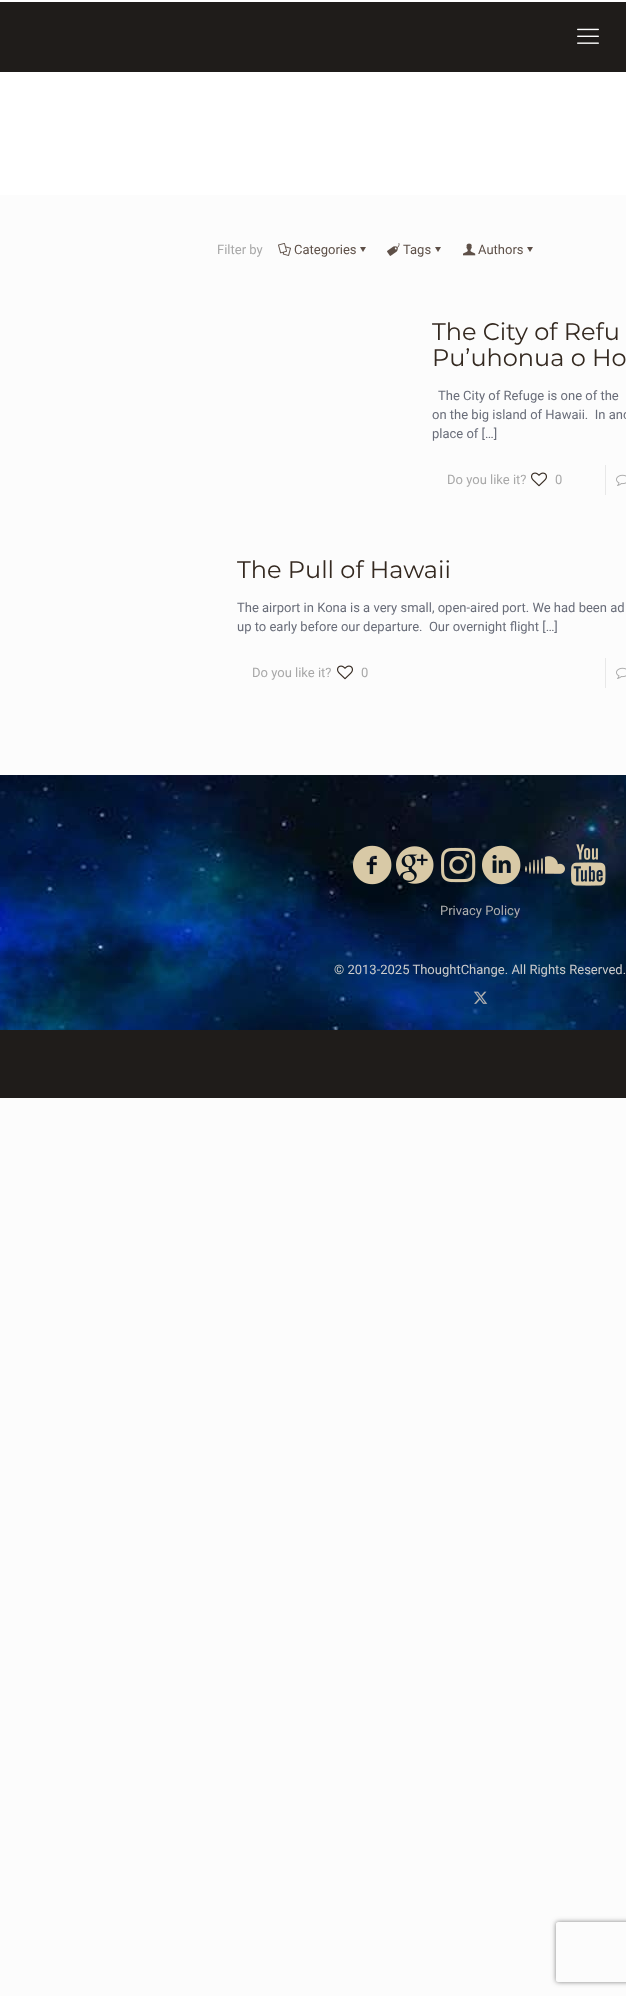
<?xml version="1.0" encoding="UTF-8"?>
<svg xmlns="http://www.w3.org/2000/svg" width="626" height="1996">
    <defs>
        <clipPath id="clip1"><path d="M 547 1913 H 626 V 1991 H 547 Z M 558 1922 H 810 C 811 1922 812 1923 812 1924 V 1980 C 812 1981 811 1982 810 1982 H 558 C 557 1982 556 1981 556 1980 V 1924 C 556 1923 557 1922 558 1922 Z" clip-rule="evenodd"/></clipPath>
        <filter id="blur1" x="-50%" y="-200%" width="200%" height="500%"><feGaussianBlur stdDeviation="2.5"/></filter>
    </defs>
    <rect width="100%" height="100%" fill="#FCFCFC"/>
    <rect x="0" y="0" width="626" height="195" fill="#FFFFFF"/>
    <rect x="0" y="2" width="626" height="70" fill="#1F1C1A"/>
    <image x="577" y="28" width="22" height="16" href="img_01.png"/>
    <text x="217" y="254" font-family="Roboto" font-size="13" fill="#A8A8A8">Filter by</text>
    <image x="278" y="243" width="13" height="13" href="img_02.png"/>
    <text x="294" y="254" font-family="Roboto" font-size="13" fill="#5E5048">Categories</text>
    <path d="M 366 247 L 363 252 L 360 247 Z" fill="#5E5048"/>
    <image x="387" y="243" width="13" height="13" href="img_03.png"/>
    <text x="403" y="254" font-family="Roboto" font-size="13" fill="#5E5048">Tags</text>
    <path d="M 441 247 L 438 252 L 435 247 Z" fill="#5E5048"/>
    <image x="463" y="243" width="13" height="13" href="img_04.png"/>
    <text x="478" y="254" font-family="Roboto" font-size="13" fill="#5E5048">Authors</text>
    <path d="M 533 247 L 530 252 L 527 247 Z" fill="#5E5048"/>
    <text font-family="Montserrat" font-size="24" fill="#342920">
        <tspan x="432" y="340">The City of Refu</tspan>
        <tspan x="432" y="366">Pu’uhonua o Ho</tspan>
    </text>
    <text x="438" y="400" font-family="Roboto" font-size="13" fill="#696D79">The City of Refuge is one of the</text>
    <text font-family="Roboto" font-size="13" fill="#696D79" xml:space="preserve"><tspan x="432" y="419">on the big island of Hawaii.  In anc</tspan><tspan x="432" y="438">place of […]</tspan></text>
    <text x="447" y="484" font-family="Roboto" font-size="13" fill="#A8A8A8">Do you like it?</text>
    <image x="531" y="472" width="16" height="15" href="img_05.png"/>
    <text x="555" y="484" font-family="Roboto" font-size="13" fill="#A8A8A8">0</text>
    <rect x="605" y="465" width="1" height="30" fill="#E8E8E8"/>
    <image x="616" y="474" width="10" height="12" href="img_06.png"/>
    <text x="237" y="578" font-family="Montserrat" font-size="24" fill="#342920">The Pull of Hawaii</text>
    <text font-family="Roboto" font-size="13" fill="#696D79" xml:space="preserve"><tspan x="237" y="612">The airport in Kona is a very small, open-aired port. We had been ad</tspan><tspan x="237" y="631">up to early before our departure.  Our overnight flight […]</tspan></text>
    <text x="252" y="677" font-family="Roboto" font-size="13" fill="#A8A8A8">Do you like it?</text>
    <image x="337" y="665" width="16" height="15" href="img_05.png"/>
    <text x="361" y="677" font-family="Roboto" font-size="13" fill="#A8A8A8">0</text>
    <rect x="605" y="658" width="1" height="30" fill="#E8E8E8"/>
    <image x="616" y="667" width="10" height="12" href="img_06.png"/>
    <rect x="0" y="1030" width="626" height="68" fill="#1F1C1A"/>
    <image x="0" y="775" width="626" height="255" href="img_07.png"/>
    <image x="353" y="845" width="39" height="40" href="img_08.png"/>
    <image x="396" y="846" width="38" height="38" href="img_09.png"/>
    <image x="441" y="847" width="35" height="36" href="img_10.png"/>
    <image x="482" y="845" width="39" height="40" href="img_11.png"/>
    <image x="525" y="856" width="40" height="18" href="img_12.png"/>
    <image x="571" y="844" width="35" height="42" href="img_13.png"/>
    <text x="440" y="915" font-family="Roboto" font-size="13" fill="#AFAFAF">Privacy Policy</text>
    <text x="334" y="974" font-family="Roboto" font-size="13" fill="#CCCCCC">© 2013-2025 ThoughtChange. All Rights Reserved.</text>
    <image x="473" y="991" width="15" height="13" href="img_14.png"/>
    <g clip-path="url(#clip1)">
        <rect x="556" y="1922" width="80" height="60" rx="2" fill="#808080" filter="url(#blur1)"/>
    </g>
</svg>
